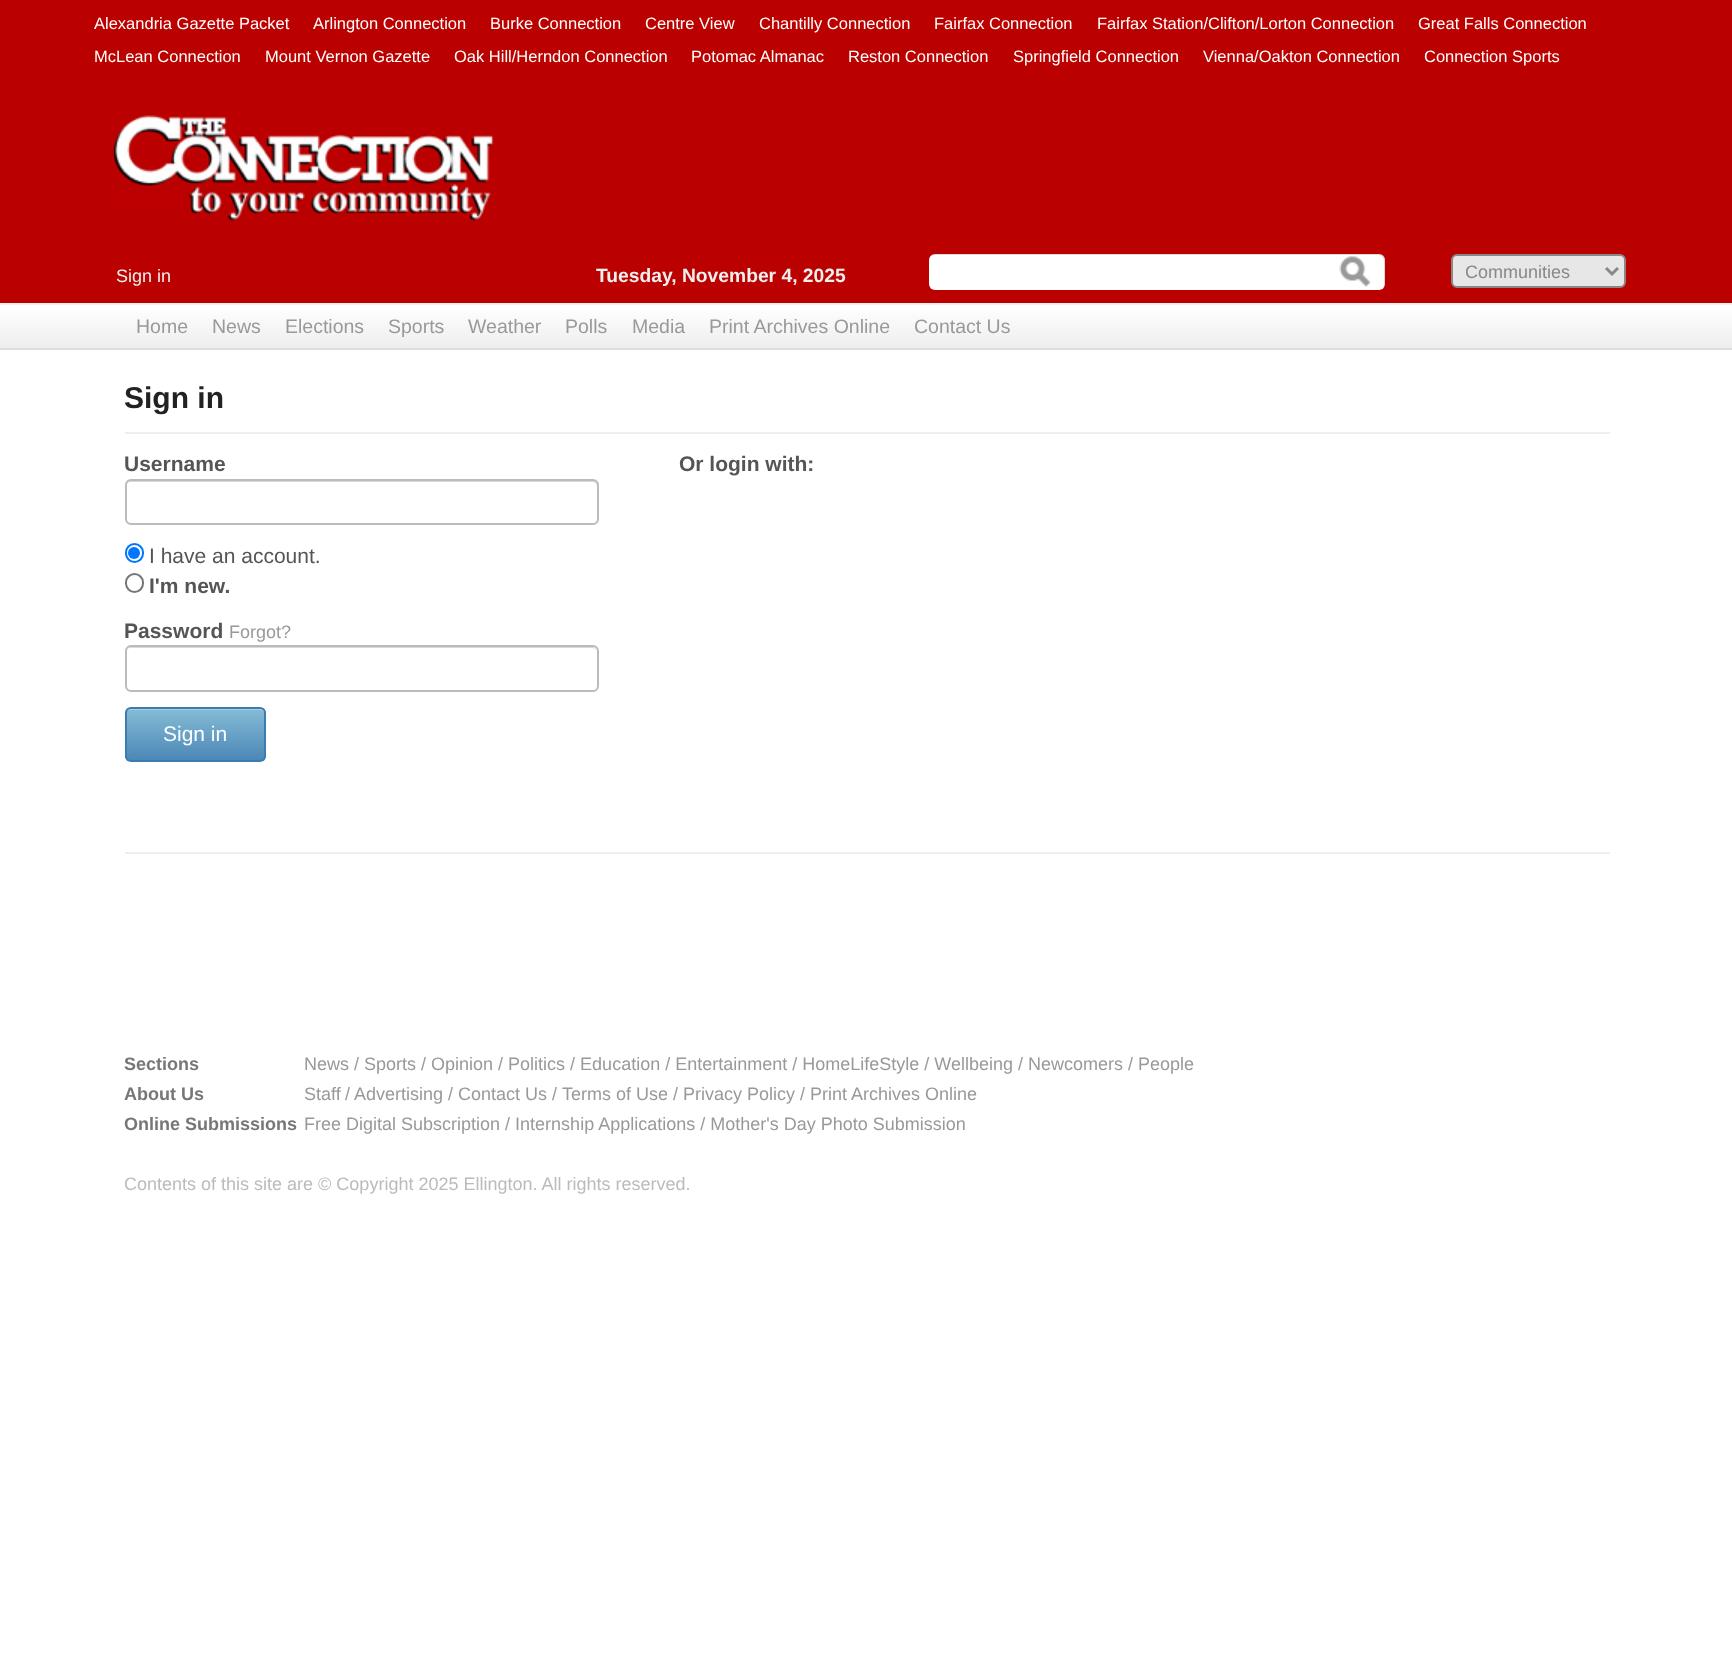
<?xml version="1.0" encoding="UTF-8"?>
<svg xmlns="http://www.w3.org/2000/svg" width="1732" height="1660">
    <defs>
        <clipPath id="clip1"><rect x="1466" y="260" width="132" height="24"/></clipPath>
        <linearGradient id="g1" gradientUnits="userSpaceOnUse" x1="866" y1="261" x2="866" y2="305"><stop offset="0" stop-color="#FFFFFF"/><stop offset="1" stop-color="#EEEEEE"/></linearGradient>
        <linearGradient id="g2" gradientUnits="userSpaceOnUse" x1="866" y1="305" x2="866" y2="348"><stop offset="0" stop-color="#FFFFFF"/><stop offset="1" stop-color="#EEEEEE"/></linearGradient>
        <clipPath id="clip2"><rect x="125" y="707" width="141" height="55" rx="6"/></clipPath>
        <linearGradient id="g3" gradientUnits="userSpaceOnUse" x1="195" y1="708" x2="195" y2="761"><stop offset="0" stop-color="#86BCD6"/><stop offset="1" stop-color="#4B87B6"/></linearGradient>
    </defs>
    <rect width="100%" height="100%" fill="#FFFFFF"/>
    <rect x="0" y="0" width="1732" height="303" fill="#BB0000"/>
    <text x="94" y="29" font-family="Liberation Sans" font-size="16.5" fill="#FFFFFF">Alexandria Gazette Packet</text>
    <text x="313" y="29" font-family="Liberation Sans" font-size="16.5" fill="#FFFFFF">Arlington Connection</text>
    <text x="490" y="29" font-family="Liberation Sans" font-size="16.5" fill="#FFFFFF">Burke Connection</text>
    <text x="645" y="29" font-family="Liberation Sans" font-size="16.5" fill="#FFFFFF">Centre View</text>
    <text x="759" y="29" font-family="Liberation Sans" font-size="16.5" fill="#FFFFFF">Chantilly Connection</text>
    <text x="934" y="29" font-family="Liberation Sans" font-size="16.5" fill="#FFFFFF">Fairfax Connection</text>
    <text x="1097" y="29" font-family="Liberation Sans" font-size="16.5" fill="#FFFFFF">Fairfax Station/Clifton/Lorton Connection</text>
    <text x="1418" y="29" font-family="Liberation Sans" font-size="16.5" fill="#FFFFFF">Great Falls Connection</text>
    <text x="94" y="62" font-family="Liberation Sans" font-size="16.5" fill="#FFFFFF">McLean Connection</text>
    <text x="265" y="62" font-family="Liberation Sans" font-size="16.5" fill="#FFFFFF">Mount Vernon Gazette</text>
    <text x="454" y="62" font-family="Liberation Sans" font-size="16.5" fill="#FFFFFF">Oak Hill/Herndon Connection</text>
    <text x="691" y="62" font-family="Liberation Sans" font-size="16.5" fill="#FFFFFF">Potomac Almanac</text>
    <text x="848" y="62" font-family="Liberation Sans" font-size="16.5" fill="#FFFFFF">Reston Connection</text>
    <text x="1013" y="62" font-family="Liberation Sans" font-size="16.5" fill="#FFFFFF">Springfield Connection</text>
    <text x="1203" y="62" font-family="Liberation Sans" font-size="16.5" fill="#FFFFFF">Vienna/Oakton Connection</text>
    <text x="1424" y="62" font-family="Liberation Sans" font-size="16.5" fill="#FFFFFF">Connection Sports</text>
    <image x="112" y="114" width="383" height="107" href="img_01.png"/>
    <text x="116" y="282" font-family="Liberation Sans" font-size="18" fill="#EFEFEF">Sign in</text>
    <text x="596" y="282" font-family="Liberation Sans" font-size="19.25" font-weight="700" fill="#EFEFEF">Tuesday, November 4, 2025</text>
    <rect x="929" y="254" width="456" height="36" rx="6" fill="#FFFFFF"/>
    <image x="1339" y="256" width="32" height="31" href="img_02.png"/>
    <path d="M 934 255 H 1378 C 1382 255 1384 258 1384 261 V 285 C 1384 286 1384 287 1383 288 C 1384 287 1385 286 1385 284 V 260 C 1385 257 1382 254 1379 254 H 935 C 933 254 931 255 930 257 C 931 256 933 255 934 255 Z" fill="#000000" fill-opacity="0.15"/>
    <rect x="1452" y="255" width="173" height="32" rx="5" fill="#E7E7E7" stroke="#888888" stroke-width="2"/>
    <path d="M 1606 268 L 1612 274 L 1618 268" fill="none" stroke="#888888" stroke-width="3"/>
    <g clip-path="url(#clip1)">
        <text x="1465" y="278" font-family="Liberation Sans" font-size="18" fill="#888888">Communities</text>
    </g>
    <rect x="0" y="303" width="1732" height="2" fill="url(#g1)"/>
    <rect x="0" y="311" width="1732" height="37" fill="url(#g2)"/>
    <rect x="0" y="348" width="1732" height="2" fill="#DDDDDD"/>
    <text x="136" y="333" font-family="Liberation Sans" font-size="19.5" fill="#999999">Home</text>
    <text x="212" y="333" font-family="Liberation Sans" font-size="19.5" fill="#999999">News</text>
    <text x="285" y="333" font-family="Liberation Sans" font-size="19.5" fill="#999999">Elections</text>
    <text x="388" y="333" font-family="Liberation Sans" font-size="19.5" fill="#999999">Sports</text>
    <text x="468" y="333" font-family="Liberation Sans" font-size="19.5" fill="#999999">Weather</text>
    <text x="565" y="333" font-family="Liberation Sans" font-size="19.5" fill="#999999">Polls</text>
    <text x="632" y="333" font-family="Liberation Sans" font-size="19.5" fill="#999999">Media</text>
    <text x="709" y="333" font-family="Liberation Sans" font-size="19.5" fill="#999999">Print Archives Online</text>
    <text x="914" y="333" font-family="Liberation Sans" font-size="19.5" fill="#999999">Contact Us</text>
    <rect x="125" y="432" width="1485" height="2" fill="#EEEEEE"/>
    <text x="124" y="408" font-family="Liberation Sans" font-size="30" font-weight="700" fill="#222222">Sign in</text>
    <text x="124" y="471" font-family="Liberation Sans" font-size="21" font-weight="700" fill="#555555">Username</text>
    <path d="M 130 482 H 592 C 595 482 597 484 597 486 V 485 C 597 482 595 480 592 480 H 131 C 128 480 126 482 126 485 V 486 C 126 484 128 482 130 482 Z" fill="#D9D9D9"/>
    <rect x="126" y="480" width="472" height="44" rx="5" fill="none" stroke="#BBBBBB" stroke-width="2"/>
    <rect x="126" y="544" width="17" height="18" rx="8.5" fill="none" stroke="#0075FF" stroke-width="2"/>
    <circle cx="134" cy="553" r="6" fill="#0075FF"/>
    <text x="149" y="563" font-family="Liberation Sans" font-size="21" fill="#555555">I have an account.</text>
    <rect x="126" y="574" width="17" height="18" rx="8.5" fill="none" stroke="#767676" stroke-width="2"/>
    <text x="149" y="593" font-family="Liberation Sans" font-size="21" font-weight="700" fill="#555555">I'm new.</text>
    <text x="124" y="638" font-family="Liberation Sans" font-size="21" font-weight="700" fill="#555555">Password</text>
    <text x="229" y="638" font-family="Liberation Sans" font-size="18" fill="#999999">Forgot?</text>
    <path d="M 130 648 H 592 C 595 648 597 650 597 652 C 597 649 595 647 592 647 H 131 C 128 647 126 649 126 652 C 126 650 128 648 130 648 Z" fill="#D9D9D9"/>
    <rect x="126" y="646" width="472" height="45" rx="5" fill="none" stroke="#BBBBBB" stroke-width="2"/>
    <g clip-path="url(#clip2)">
        <rect x="125" y="708" width="141" height="53" fill="url(#g3)"/>
    </g>
    <path d="M 130 710 H 260 C 262 710 264 712 264 714 V 713 C 264 710 262 708 259 708 H 131 C 128 708 126 710 126 713 V 714 C 126 712 128 710 130 710 Z" fill="#FFFFFF" fill-opacity="0.3"/>
    <rect x="126" y="708" width="139" height="53" rx="5" fill="none" stroke="#3D7CB1" stroke-width="2"/>
    <text x="163" y="741" font-family="Liberation Sans" font-size="21" fill="#FFFFFF">Sign in</text>
    <text x="679" y="471" font-family="Liberation Sans" font-size="21" font-weight="700" fill="#555555">Or login with:</text>
    <rect x="125" y="852" width="1485" height="2" fill="#EEEEEE"/>
    <text x="124" y="1070" font-family="Liberation Sans" font-size="18" font-weight="700" fill="#777777">Sections</text>
    <text x="304" y="1070" font-family="Liberation Sans" font-size="18" fill="#999999">News / Sports / Opinion / Politics / Education / Entertainment / HomeLifeStyle / Wellbeing / Newcomers / People</text>
    <text x="124" y="1100" font-family="Liberation Sans" font-size="18" font-weight="700" fill="#777777">About Us</text>
    <text x="304" y="1100" font-family="Liberation Sans" font-size="18" fill="#999999">Staff</text>
    <text x="345" y="1100" font-family="Liberation Sans" font-size="18" fill="#999999">/</text>
    <text x="354" y="1100" font-family="Liberation Sans" font-size="18" fill="#999999">Advertising / Contact Us /</text>
    <text x="562" y="1100" font-family="Liberation Sans" font-size="18" fill="#999999">Terms of Use / Privacy Policy / Print Archives Online</text>
    <text x="124" y="1130" font-family="Liberation Sans" font-size="18" font-weight="700" fill="#777777">Online Submissions</text>
    <text x="304" y="1130" font-family="Liberation Sans" font-size="18" fill="#999999">Free Digital Subscription / Internship Applications / Mother's Day Photo Submission</text>
    <text x="124" y="1190" font-family="Liberation Sans" font-size="18" fill="#BBBBBB">Contents of this site are © Copyright 2025 Ellington. All rights reserved.</text>
</svg>
